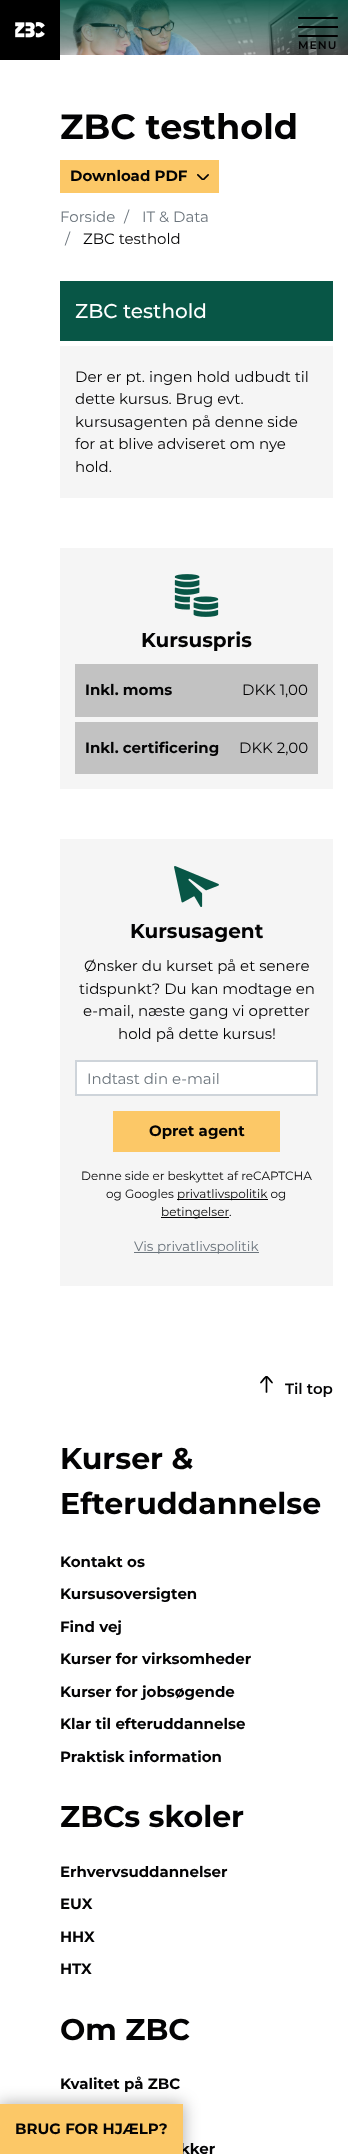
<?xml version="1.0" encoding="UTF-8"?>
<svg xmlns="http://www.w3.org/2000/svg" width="348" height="2154">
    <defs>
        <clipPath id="clip1"><path d="M 259.5 1394 V 1376 H 273 V 1394 Z"/></clipPath>
        <filter id="blur1" x="-50%" y="-200%" width="200%" height="500%"><feGaussianBlur stdDeviation="8"/></filter>
    </defs>
    <rect width="100%" height="100%" fill="#FFFFFF"/>
    <image x="60" y="0" width="288" height="55" href="img_01.png"/>
    <rect x="0" y="0" width="60" height="60" fill="#000000"/>
    <image x="15" y="22" width="30" height="16" href="img_02.png"/>
    <rect x="298" y="17" width="40" height="2" rx="1" fill="#000000"/>
    <rect x="298" y="26" width="40" height="2" fill="#000000"/>
    <rect x="298" y="35" width="40" height="2" rx="1" fill="#000000"/>
    <text x="298" y="49" font-family="Montserrat" font-size="11" font-weight="600" letter-spacing="1" fill="#030304">MENU</text>
    <text x="60" y="139" font-family="Montserrat" font-size="35" font-weight="700" fill="#030304">ZBC testhold</text>
    <rect x="60" y="160" width="159" height="33" fill="#FCC867"/>
    <text x="70" y="181" font-family="Montserrat" font-size="15" font-weight="700" fill="#030304">Download PDF</text>
    <image x="197" y="174" width="12" height="6" href="img_03.png"/>
    <text x="60" y="222" font-family="Montserrat" font-size="15" fill="#6C757D">Forside</text>
    <text x="124" y="222" font-family="Montserrat" font-size="15" fill="#6C757D">/</text>
    <text x="142" y="222" font-family="Montserrat" font-size="15" fill="#6C757D">IT &amp; Data</text>
    <text x="65" y="244" font-family="Montserrat" font-size="15" fill="#6C757D">/</text>
    <text x="83" y="244" font-family="Montserrat" font-size="15" fill="#030304">ZBC testhold</text>
    <rect x="60" y="281" width="273" height="60" fill="#085646"/>
    <text x="75" y="318" font-family="Montserrat" font-size="20" font-weight="500" fill="#FFFFFF">ZBC testhold</text>
    <rect x="60" y="346" width="273" height="152" fill="#F5F5F5"/>
    <text font-family="Montserrat" font-size="15" fill="#030304">
        <tspan x="75" y="382">Der er pt. ingen hold udbudt til</tspan>
        <tspan x="75" y="404">dette kursus. Brug evt.</tspan>
        <tspan x="75" y="427">kursusagenten på denne side</tspan>
        <tspan x="75" y="449">for at blive adviseret om nye</tspan>
        <tspan x="75" y="472">hold.</tspan>
    </text>
    <rect x="60" y="548" width="273" height="241" fill="#F5F5F5"/>
    <image x="174" y="574" width="45" height="43" href="img_04.png"/>
    <text x="141" y="647" font-family="Montserrat" font-size="20" font-weight="700" fill="#030304">Kursuspris</text>
    <rect x="75" y="664" width="243" height="53" fill="#C2C2C2"/>
    <text x="85" y="695" font-family="Montserrat" font-size="15" font-weight="700" fill="#030304">Inkl. moms</text>
    <text x="242" y="695" font-family="Montserrat" font-size="15" fill="#030304">DKK 1,00</text>
    <rect x="75" y="722" width="243" height="52" fill="#C2C2C2"/>
    <text x="85" y="753" font-family="Montserrat" font-size="15" font-weight="700" fill="#030304">Inkl. certificering</text>
    <text x="239" y="753" font-family="Montserrat" font-size="15" fill="#030304">DKK 2,00</text>
    <rect x="60" y="839" width="273" height="447" fill="#F5F5F5"/>
    <image x="174" y="866" width="45" height="41" href="img_05.png"/>
    <text x="130" y="938" font-family="Montserrat" font-size="20" font-weight="700" fill="#030304">Kursusagent</text>
    <text x="84" y="971" font-family="Montserrat" font-size="15" fill="#030304">Ønsker du kurset på et senere</text>
    <text x="79" y="994" font-family="Montserrat" font-size="15" fill="#030304">tidspunkt? Du kan modtage en</text>
    <text x="83" y="1016" font-family="Montserrat" font-size="15" fill="#030304">e-mail, næste gang vi opretter</text>
    <text x="118" y="1039" font-family="Montserrat" font-size="15" fill="#030304">hold på dette kursus!</text>
    <rect x="76" y="1061" width="241" height="34" fill="#FFFFFF" stroke="#CED4DA" stroke-width="2"/>
    <text x="87" y="1084" font-family="Montserrat" font-size="15" fill="#6C757D">Indtast din e-mail</text>
    <rect x="113" y="1111" width="167" height="41" fill="#FCC867"/>
    <text x="149" y="1136" font-family="Montserrat" font-size="15" font-weight="700" fill="#030304">Opret agent</text>
    <text x="81" y="1180" font-family="Montserrat" font-size="12" fill="#030304">Denne side er beskyttet af reCAPTCHA</text>
    <text x="106" y="1198" font-family="Montserrat" font-size="12" fill="#030304">og Googles</text>
    <rect x="177" y="1199" width="91" height="1" fill="#030304"/>
    <text x="177" y="1198" font-family="Montserrat" font-size="12" fill="#030304">privatlivspolitik og</text>
    <rect x="161" y="1217" width="68" height="1" fill="#030304"/>
    <text x="161" y="1216" font-family="Montserrat" font-size="12" fill="#030304">betingelser.</text>
    <rect x="134" y="1252" width="125" height="1" fill="#6C757D"/>
    <text x="134" y="1251" font-family="Montserrat" font-size="13.5" fill="#6C757D">Vis privatlivspolitik</text>
    <g clip-path="url(#clip1)">
        <path d="M 266.5 1376.5 V 1392 M 272 1382.5 C 265 1374.5 268 1374.5 261 1382.5" fill="none" stroke="#000000" stroke-width="1.7" stroke-linecap="round" stroke-linejoin="round"/>
    </g>
    <text x="285" y="1394" font-family="Montserrat" font-size="15" font-weight="600" fill="#030304">Til top</text>
    <text font-family="Montserrat" font-size="30" font-weight="700" fill="#030304">
        <tspan x="60" y="1469">Kurser &amp;</tspan>
        <tspan x="60" y="1514">Efteruddannelse</tspan>
    </text>
    <text x="60" y="1567" font-family="Montserrat" font-size="15" font-weight="700" fill="#030304">Kontakt os</text>
    <text x="60" y="1599" font-family="Montserrat" font-size="15" font-weight="700" fill="#030304">Kursusoversigten</text>
    <text x="60" y="1632" font-family="Montserrat" font-size="15" font-weight="700" fill="#030304">Find vej</text>
    <text x="60" y="1664" font-family="Montserrat" font-size="15" font-weight="700" fill="#030304">Kurser for virksomheder</text>
    <text x="60" y="1697" font-family="Montserrat" font-size="15" font-weight="700" fill="#030304">Kurser for jobsøgende</text>
    <text x="60" y="1729" font-family="Montserrat" font-size="15" font-weight="700" fill="#030304">Klar til efteruddannelse</text>
    <text x="60" y="1762" font-family="Montserrat" font-size="15" font-weight="700" fill="#030304">Praktisk information</text>
    <text x="60" y="1827" font-family="Montserrat" font-size="30" font-weight="700" fill="#030304">ZBCs skoler</text>
    <text x="60" y="1877" font-family="Montserrat" font-size="15" font-weight="700" fill="#030304">Erhvervsuddannelser</text>
    <text x="60" y="1909" font-family="Montserrat" font-size="15" font-weight="700" fill="#030304">EUX</text>
    <text x="60" y="1942" font-family="Montserrat" font-size="15" font-weight="700" fill="#030304">HHX</text>
    <text x="60" y="1974" font-family="Montserrat" font-size="15" font-weight="700" fill="#030304">HTX</text>
    <text x="60" y="2040" font-family="Montserrat" font-size="30" font-weight="700" fill="#030304">Om ZBC</text>
    <text x="60" y="2089" font-family="Montserrat" font-size="15" font-weight="700" fill="#030304">Kvalitet på ZBC</text>
    <text x="180" y="2154" font-family="Montserrat" font-size="15" font-weight="700" fill="#030304">kker</text>
    <rect x="-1" y="2103" width="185" height="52" fill="#000000" fill-opacity="0.3" filter="url(#blur1)"/>
    <rect x="0" y="2104" width="183" height="50" fill="#FCC867"/>
    <text x="15" y="2134" font-family="Montserrat" font-size="15" font-weight="700" fill="#030304">BRUG FOR HJÆLP?</text>
</svg>
